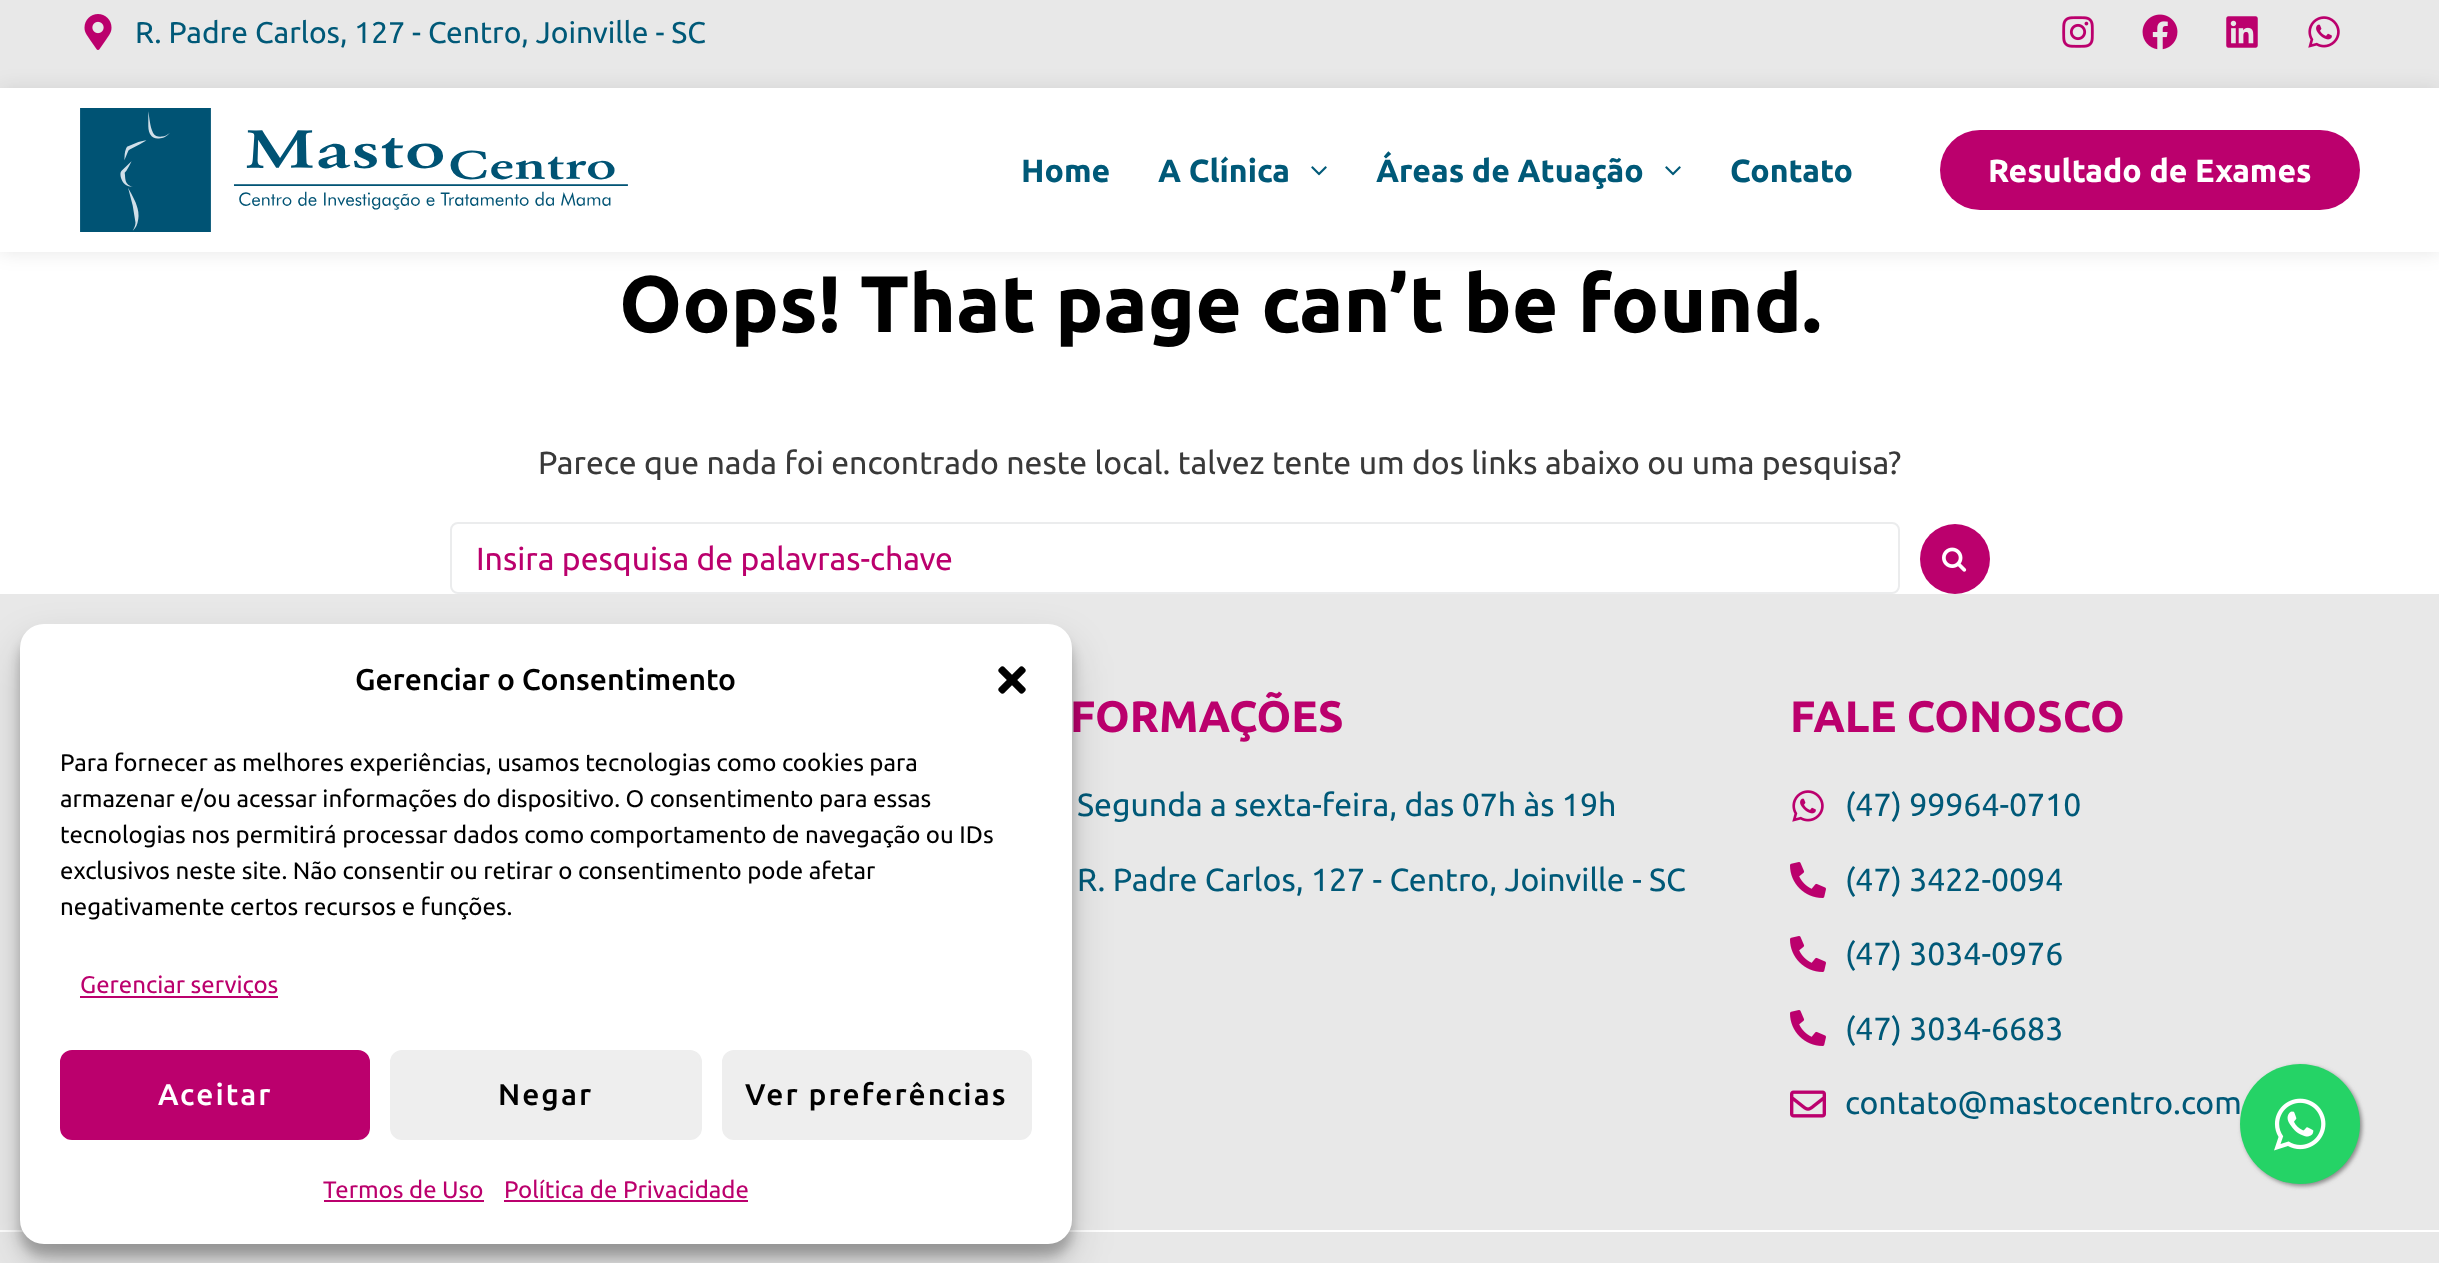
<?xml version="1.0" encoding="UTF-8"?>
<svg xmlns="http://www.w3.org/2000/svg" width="2439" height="1263">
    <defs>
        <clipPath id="clip1"><path d="M 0 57 H 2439 V 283 H 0 Z M 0 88 H 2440 V 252 H 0 Z" clip-rule="evenodd"/></clipPath>
        <filter id="blur1" x="-50%" y="-200%" width="200%" height="500%"><feGaussianBlur stdDeviation="10"/></filter>
        <filter id="blur2" x="-50%" y="-200%" width="200%" height="500%"><feGaussianBlur stdDeviation="6"/></filter>
        <filter id="blur3" x="-50%" y="-200%" width="200%" height="500%"><feGaussianBlur stdDeviation="20"/></filter>
        <filter id="blur4" x="-50%" y="-200%" width="200%" height="500%"><feGaussianBlur stdDeviation="2"/></filter>
    </defs>
    <rect width="100%" height="100%" fill="#FFFFFF"/>
    <rect x="0" y="0" width="2439" height="88" fill="#E8E8E8"/>
    <image x="84" y="14" width="28" height="36" href="img_01.png"/>
    <text x="135" y="43" font-family="Ubuntu" font-size="30" fill="#005978">R. Padre Carlos, 127 - Centro, Joinville - SC</text>
    <image x="2062" y="16" width="32" height="32" href="img_02.png"/>
    <image x="2142" y="14" width="36" height="36" href="img_03.png"/>
    <image x="2226" y="16" width="32" height="32" href="img_04.png"/>
    <image x="2308" y="16" width="32" height="32" href="img_05.png"/>
    <g clip-path="url(#clip1)">
        <rect x="0" y="88" width="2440" height="164" fill="#000000" fill-opacity="0.1" filter="url(#blur1)"/>
    </g>
    <image x="80" y="108" width="548" height="124" href="img_06.png"/>
    <text x="1021" y="182" font-family="Ubuntu" font-size="32" font-weight="700" fill="#005978">Home</text>
    <text x="1158" y="182" font-family="Ubuntu" font-size="32" font-weight="700" fill="#005978">A Clínica</text>
    <image x="1311" y="166" width="16" height="10" href="img_07.png"/>
    <text x="1376" y="182" font-family="Ubuntu" font-size="32" font-weight="700" fill="#005978">Áreas de Atuação</text>
    <image x="1665" y="166" width="16" height="10" href="img_07.png"/>
    <text x="1730" y="182" font-family="Ubuntu" font-size="32" font-weight="700" fill="#005978">Contato</text>
    <rect x="1940" y="130" width="420" height="80" rx="40" fill="#BB006D"/>
    <text x="1988" y="182" font-family="Ubuntu" font-size="32" font-weight="700" fill="#FFFFFF">Resultado de Exames</text>
    <text x="619" y="332" font-family="Ubuntu" font-size="80" font-weight="700" fill="#000000">Oops! That page can’t be found.</text>
    <text x="538" y="474" font-family="Ubuntu" font-size="32" fill="#393939">Parece que nada foi encontrado neste local. talvez tente um dos links abaixo ou uma pesquisa?</text>
    <rect x="451" y="523" width="1448" height="70" rx="7" fill="none" stroke="#EBECED" stroke-width="2"/>
    <text x="476" y="570" font-family="Ubuntu" font-size="32" fill="#BB006D">Insira pesquisa de palavras-chave</text>
    <circle cx="1955" cy="559" r="35" fill="#BB006D"/>
    <image x="1942" y="547" width="25" height="25" href="img_08.png"/>
    <rect x="0" y="594" width="2439" height="636" fill="#E8E8E8"/>
    <text x="1070" y="732" font-family="Ubuntu" font-size="44" font-weight="700" fill="#BB006D">FORMAÇÕES</text>
    <text x="1077" y="816" font-family="Ubuntu" font-size="32" fill="#005978">Segunda a sexta-feira, das 07h às 19h</text>
    <text x="1077" y="891" font-family="Ubuntu" font-size="32" fill="#005978">R. Padre Carlos, 127 - Centro, Joinville - SC</text>
    <text x="1790" y="732" font-family="Ubuntu" font-size="44" font-weight="700" fill="#BB006D">FALE CONOSCO</text>
    <image x="1792" y="790" width="32" height="32" href="img_05.png"/>
    <text x="1845" y="816" font-family="Ubuntu" font-size="32" fill="#005978">(47) 99964-0710</text>
    <image x="1790" y="862" width="36" height="36" href="img_09.png"/>
    <text x="1845" y="891" font-family="Ubuntu" font-size="32" fill="#005978">(47) 3422-0094</text>
    <image x="1790" y="936" width="36" height="36" href="img_09.png"/>
    <text x="1845" y="965" font-family="Ubuntu" font-size="32" fill="#005978">(47) 3034-0976</text>
    <image x="1790" y="1010" width="36" height="36" href="img_09.png"/>
    <text x="1845" y="1040" font-family="Ubuntu" font-size="32" fill="#005978">(47) 3034-6683</text>
    <image x="1790" y="1090" width="36" height="28" href="img_10.png"/>
    <text x="1845" y="1114" font-family="Ubuntu" font-size="32" fill="#005978">contato@mastocentro.com</text>
    <rect x="0" y="1232" width="2439" height="31" fill="#E8E8E8"/>
    <rect x="20" y="636" width="1052" height="620" rx="24" fill="#000000" fill-opacity="0.23" filter="url(#blur2)"/>
    <rect x="20" y="644" width="1052" height="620" rx="24" fill="#000000" fill-opacity="0.19" filter="url(#blur3)"/>
    <rect x="20" y="624" width="1052" height="620" rx="24" fill="#FFFFFF"/>
    <text x="355" y="690" font-family="Ubuntu" font-size="30" font-weight="500" fill="#000000">Gerenciar o Consentimento</text>
    <image x="998" y="666" width="28" height="28" href="img_11.png"/>
    <text font-family="Ubuntu" font-size="24" fill="#000000">
        <tspan x="60" y="771">Para fornecer as melhores experiências, usamos tecnologias como cookies para</tspan>
        <tspan x="60" y="807">armazenar e/ou acessar informações do dispositivo. O consentimento para essas</tspan>
        <tspan x="60" y="843">tecnologias nos permitirá processar dados como comportamento de navegação ou IDs</tspan>
        <tspan x="60" y="879">exclusivos neste site. Não consentir ou retirar o consentimento pode afetar</tspan>
        <tspan x="60" y="915">negativamente certos recursos e funções.</tspan>
    </text>
    <rect x="80" y="996" width="198" height="2" fill="#BB006D"/>
    <text x="80" y="993" font-family="Ubuntu" font-size="24" fill="#BB006D">Gerenciar serviços</text>
    <rect x="61" y="1051" width="308" height="88" rx="11" fill="#BB006D" stroke="#BB006D" stroke-width="2"/>
    <text x="158" y="1105" font-family="Ubuntu" font-size="30" font-weight="500" letter-spacing="2" fill="#FFFFFF">Aceitar</text>
    <rect x="391" y="1051" width="310" height="88" rx="11" fill="#EEEEEE" stroke="#EEEEEE" stroke-width="2"/>
    <text x="498" y="1105" font-family="Ubuntu" font-size="30" font-weight="500" letter-spacing="2" fill="#000000">Negar</text>
    <rect x="723" y="1051" width="308" height="88" rx="11" fill="#EEEEEE" stroke="#EEEEEE" stroke-width="2"/>
    <text x="745" y="1105" font-family="Ubuntu" font-size="30" font-weight="500" letter-spacing="2" fill="#000000">Ver preferências</text>
    <text x="323" y="1198" font-family="Ubuntu" font-size="24" fill="#BB006D">Termos de Uso</text>
    <rect x="324" y="1200" width="160" height="2" fill="#BB006D"/>
    <text x="504" y="1198" font-family="Ubuntu" font-size="24" fill="#BB006D">Política de Privacidade</text>
    <rect x="504" y="1200" width="244" height="2" fill="#BB006D"/>
    <rect x="2242" y="1066" width="120" height="120" rx="60" fill="#888888" filter="url(#blur4)"/>
    <circle cx="2300" cy="1124" r="60" fill="#25D366"/>
    <image x="2274" y="1098" width="52" height="53" href="img_12.png"/>
</svg>
